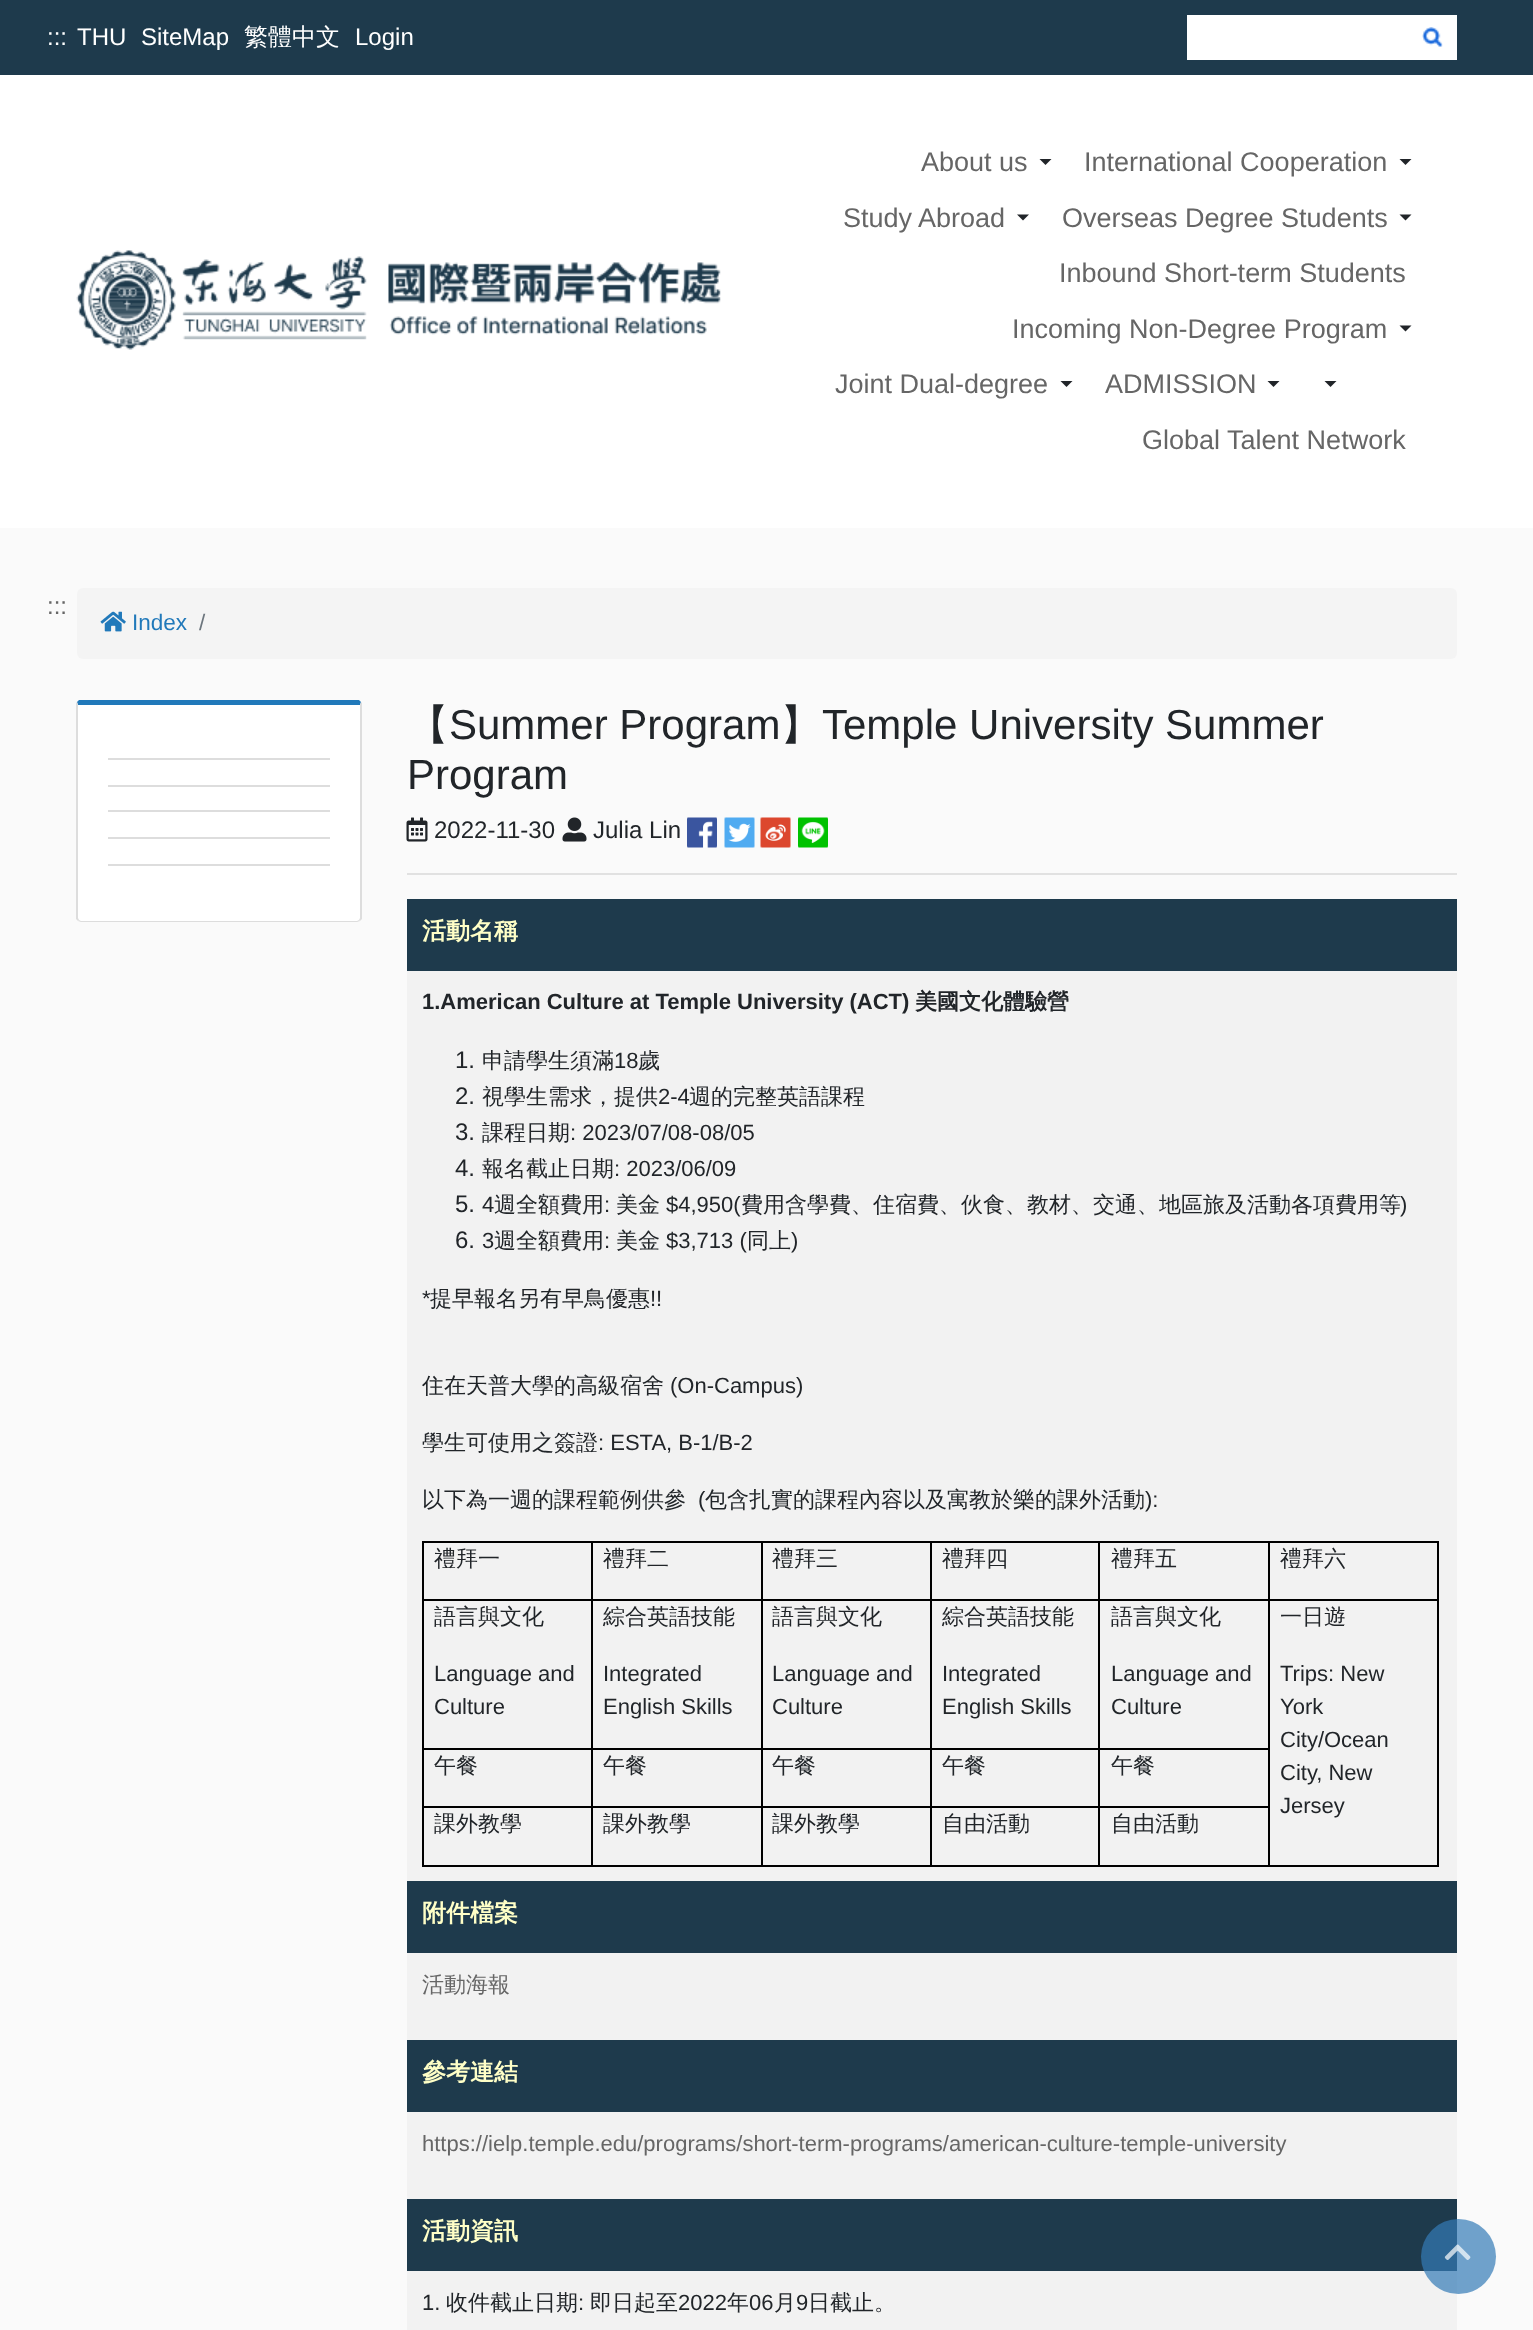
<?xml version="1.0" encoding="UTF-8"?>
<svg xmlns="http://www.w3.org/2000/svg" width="1533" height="2330">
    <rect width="100%" height="100%" fill="#FAFAFA"/>
    <rect x="0" y="75" width="1533" height="453" fill="#FFFFFF"/>
    <rect x="0" y="0" width="1533" height="75" fill="#1E3A4C"/>
    <text x="47" y="45" font-family="Liberation Sans" font-size="24" fill="#FFFFFF">:::</text>
    <text x="77" y="45" font-family="Liberation Sans" font-size="24" fill="#FFFFFF">THU</text>
    <text x="141" y="45" font-family="Liberation Sans" font-size="24" fill="#FFFFFF">SiteMap</text>
    <text x="244" y="45" font-family="WenQuanYi Zen Hei" font-size="24" font-weight="500" fill="#FFFFFF">繁體中文</text>
    <text x="355" y="45" font-family="Liberation Sans" font-size="24" fill="#FFFFFF">Login</text>
    <rect x="1187" y="15" width="270" height="45" fill="#FFFFFF"/>
    <image x="1422" y="27" width="21" height="20" href="img_01.png"/>
    <image x="76" y="250" width="645" height="100" href="img_02.png"/>
    <text x="921" y="171" font-family="Liberation Sans" font-size="27" fill="#666666">About us</text>
    <path d="M 1039.5 159 H 1051.5 L 1045.5 165 Z" fill="#212529"/>
    <text x="1084" y="171" font-family="Liberation Sans" font-size="27" fill="#666666">International Cooperation</text>
    <path d="M 1399.5 159 H 1411.5 L 1405.5 165 Z" fill="#212529"/>
    <text x="843" y="227" font-family="Liberation Sans" font-size="27" fill="#666666">Study Abroad</text>
    <path d="M 1017 214.5 H 1029 L 1023 220.5 Z" fill="#212529"/>
    <text x="1062" y="227" font-family="Liberation Sans" font-size="27" fill="#666666">Overseas Degree Students</text>
    <path d="M 1399.5 214.5 H 1411.5 L 1405.5 220.5 Z" fill="#212529"/>
    <text x="1059" y="282" font-family="Liberation Sans" font-size="27" fill="#666666">Inbound Short-term Students</text>
    <text x="1012" y="338" font-family="Liberation Sans" font-size="27" fill="#666666">Incoming Non-Degree Program</text>
    <path d="M 1399.5 325.5 H 1411.5 L 1405.5 331.5 Z" fill="#212529"/>
    <text x="835" y="393" font-family="Liberation Sans" font-size="27" fill="#666666">Joint Dual-degree</text>
    <path d="M 1060.5 381 H 1072.5 L 1066.5 387 Z" fill="#212529"/>
    <text x="1105" y="393" font-family="Liberation Sans" font-size="27" fill="#666666">ADMISSION</text>
    <path d="M 1267.5 381 H 1279.5 L 1273.5 387 Z" fill="#212529"/>
    <path d="M 1324.5 381 H 1336.5 L 1330.5 387 Z" fill="#212529"/>
    <text x="1142" y="449" font-family="Liberation Sans" font-size="27" fill="#666666">Global Talent Network</text>
    <text x="47" y="614" font-family="Liberation Sans" font-size="24" fill="#666666">:::</text>
    <rect x="77" y="588" width="1380" height="71" rx="6" fill="#F4F4F4"/>
    <image x="100" y="611" width="26" height="21" href="img_03.png"/>
    <text x="132" y="630" font-family="Liberation Sans" font-size="22.5" fill="#2179BA">Index</text>
    <text x="199" y="630" font-family="Liberation Sans" font-size="22.5" fill="#6C757D">/</text>
    <path d="M 81 705 H 360 V 918 C 360 920 359 921 357 921 H 81 C 79 921 78 920 78 918 V 705 Z" fill="#FFFFFF"/>
    <path d="M 77 702 L 79 700 H 359 L 361 702 L 360 705 H 78 Z" fill="#2179BA"/>
    <path d="M 362 919 L 360 921 L 359 920 L 360 918 V 705 L 361 702 L 362 703 Z" fill="#DDDDDD"/>
    <path d="M 360 921 L 357 922 H 81 L 78 921 L 79 920 L 81 921 H 357 L 359 920 Z" fill="#DDDDDD"/>
    <path d="M 76 703 L 77 702 L 78 705 V 918 L 79 920 L 78 921 L 76 919 Z" fill="#DDDDDD"/>
    <rect x="108" y="758" width="222" height="2" fill="#DDDDDD"/>
    <rect x="108" y="785" width="222" height="2" fill="#DDDDDD"/>
    <rect x="108" y="810" width="222" height="2" fill="#DDDDDD"/>
    <rect x="108" y="837" width="222" height="2" fill="#DDDDDD"/>
    <rect x="108" y="864" width="222" height="2" fill="#DDDDDD"/>
    <text x="407" y="739" font-family="WenQuanYi Zen Hei" font-size="42" font-weight="500" fill="#212529">【</text>
    <text x="449" y="739" font-family="Liberation Sans" font-size="42" fill="#212529">Summer Program</text>
    <text x="780" y="739" font-family="WenQuanYi Zen Hei" font-size="42" font-weight="500" fill="#212529">】</text>
    <text x="822" y="739" font-family="Liberation Sans" font-size="42" fill="#212529">Temple University Summer</text>
    <text x="407" y="789" font-family="Liberation Sans" font-size="42" fill="#212529">Program</text>
    <image x="406" y="817" width="22" height="25" href="img_04.png"/>
    <text x="434" y="838" font-family="Liberation Sans" font-size="24" fill="#212529">2022-11-30</text>
    <image x="562" y="817" width="25" height="25" href="img_05.png"/>
    <text x="593" y="838" font-family="Liberation Sans" font-size="24" fill="#212529">Julia Lin</text>
    <image x="687" y="817" width="30" height="31" href="img_06.png"/>
    <image x="724" y="817" width="31" height="31" href="img_07.png"/>
    <image x="760" y="817" width="31" height="31" href="img_08.png"/>
    <image x="798" y="817" width="30" height="31" href="img_09.png"/>
    <rect x="407" y="873" width="1050" height="2" fill="#E1E1E1"/>
    <rect x="407" y="899" width="1050" height="72" fill="#1E3A4C"/>
    <text x="422" y="939" font-family="WenQuanYi Zen Hei" font-size="24" font-weight="700" fill="#FFFFC7">活動名稱</text>
    <rect x="407" y="971" width="1050" height="910" fill="#F2F2F2"/>
    <text x="422" y="1009" font-family="Liberation Sans" font-size="22" font-weight="700" fill="#212529">1.American Culture at Temple University (ACT)</text>
    <text x="915" y="1009" font-family="WenQuanYi Zen Hei" font-size="22" font-weight="700" fill="#212529">美國文化體驗營</text>
    <text x="455" y="1068" font-family="Liberation Sans" font-size="24" fill="#212529">1.</text>
    <text x="482" y="1068" font-family="WenQuanYi Zen Hei" font-size="22" font-weight="500" fill="#212529">申請學生須滿</text>
    <text x="614" y="1068" font-family="Liberation Sans" font-size="22" fill="#212529">18</text>
    <text x="638" y="1068" font-family="WenQuanYi Zen Hei" font-size="22" font-weight="500" fill="#212529">歲</text>
    <text x="455" y="1104" font-family="Liberation Sans" font-size="24" fill="#212529">2.</text>
    <text x="482" y="1104" font-family="WenQuanYi Zen Hei" font-size="22" font-weight="500" fill="#212529">視學生需求，提供</text>
    <text x="658" y="1104" font-family="Liberation Sans" font-size="22" fill="#212529">2-4</text>
    <text x="689" y="1104" font-family="WenQuanYi Zen Hei" font-size="22" font-weight="500" fill="#212529">週的完整英語課程</text>
    <text x="455" y="1140" font-family="Liberation Sans" font-size="24" fill="#212529">3.</text>
    <text x="482" y="1140" font-family="WenQuanYi Zen Hei" font-size="22" font-weight="500" fill="#212529">課程日期</text>
    <text x="570" y="1140" font-family="Liberation Sans" font-size="22" fill="#212529">: 2023/07/08-08/05</text>
    <text x="455" y="1176" font-family="Liberation Sans" font-size="24" fill="#212529">4.</text>
    <text x="482" y="1176" font-family="WenQuanYi Zen Hei" font-size="22" font-weight="500" fill="#212529">報名截止日期</text>
    <text x="614" y="1176" font-family="Liberation Sans" font-size="22" fill="#212529">: 2023/06/09</text>
    <text x="455" y="1212" font-family="Liberation Sans" font-size="24" fill="#212529">5.</text>
    <text x="482" y="1212" font-family="Liberation Sans" font-size="22" fill="#212529">4</text>
    <text x="494" y="1212" font-family="WenQuanYi Zen Hei" font-size="22" font-weight="500" fill="#212529">週全額費用</text>
    <text x="604" y="1212" font-family="Liberation Sans" font-size="22" fill="#212529">:</text>
    <text x="616" y="1212" font-family="WenQuanYi Zen Hei" font-size="22" font-weight="500" fill="#212529">美金</text>
    <text x="666" y="1212" font-family="Liberation Sans" font-size="22" fill="#212529">$4,950(</text>
    <text x="741" y="1212" font-family="WenQuanYi Zen Hei" font-size="22" font-weight="500" fill="#212529">費用含學費、住宿費、伙食、教材、交通、地區旅及活動各項費用等</text>
    <text x="1400" y="1212" font-family="Liberation Sans" font-size="22" fill="#212529">)</text>
    <text x="455" y="1248" font-family="Liberation Sans" font-size="24" fill="#212529">6.</text>
    <text x="482" y="1248" font-family="Liberation Sans" font-size="22" fill="#212529">3</text>
    <text x="494" y="1248" font-family="WenQuanYi Zen Hei" font-size="22" font-weight="500" fill="#212529">週全額費用</text>
    <text x="604" y="1248" font-family="Liberation Sans" font-size="22" fill="#212529">:</text>
    <text x="616" y="1248" font-family="WenQuanYi Zen Hei" font-size="22" font-weight="500" fill="#212529">美金</text>
    <text x="666" y="1248" font-family="Liberation Sans" font-size="22" fill="#212529">$3,713 (</text>
    <text x="747" y="1248" font-family="WenQuanYi Zen Hei" font-size="22" font-weight="500" fill="#212529">同上</text>
    <text x="791" y="1248" font-family="Liberation Sans" font-size="22" fill="#212529">)</text>
    <text x="422" y="1306" font-family="Liberation Sans" font-size="22" fill="#212529">*</text>
    <text x="430" y="1306" font-family="WenQuanYi Zen Hei" font-size="22" font-weight="500" fill="#212529">提早報名另有早鳥優惠</text>
    <text x="650" y="1306" font-family="Liberation Sans" font-size="22" fill="#212529">!!</text>
    <text x="422" y="1393" font-family="WenQuanYi Zen Hei" font-size="22" font-weight="500" fill="#212529">住在天普大學的高級宿舍</text>
    <text x="670" y="1393" font-family="Liberation Sans" font-size="22" fill="#212529">(On-Campus)</text>
    <text x="422" y="1450" font-family="WenQuanYi Zen Hei" font-size="22" font-weight="500" fill="#212529">學生可使用之簽證</text>
    <text x="598" y="1450" font-family="Liberation Sans" font-size="22" fill="#212529">: ESTA, B-1/B-2</text>
    <text x="422" y="1507" font-family="WenQuanYi Zen Hei" font-size="22" font-weight="500" fill="#212529">以下為一週的課程範例供參</text>
    <text x="698" y="1507" font-family="Liberation Sans" font-size="22" fill="#212529">(</text>
    <text x="705" y="1507" font-family="WenQuanYi Zen Hei" font-size="22" font-weight="500" fill="#212529">包含扎實的課程內容以及寓教於樂的課外活動</text>
    <text x="1145" y="1507" font-family="Liberation Sans" font-size="22" fill="#212529">):</text>
    <rect x="422" y="1541" width="1017" height="2" fill="#000000"/>
    <rect x="1437" y="1541" width="2" height="325" fill="#000000"/>
    <rect x="422" y="1865" width="1017" height="2" fill="#000000"/>
    <rect x="422" y="1541" width="2" height="325" fill="#000000"/>
    <rect x="1268" y="1599" width="2" height="267" fill="#000000"/>
    <rect x="1268" y="1599" width="171" height="2" fill="#000000"/>
    <rect x="1268" y="1541" width="2" height="60" fill="#000000"/>
    <rect x="1098" y="1806" width="2" height="60" fill="#000000"/>
    <rect x="1098" y="1806" width="171" height="2" fill="#000000"/>
    <rect x="1098" y="1748" width="2" height="60" fill="#000000"/>
    <rect x="1098" y="1748" width="171" height="2" fill="#000000"/>
    <rect x="1098" y="1599" width="2" height="150" fill="#000000"/>
    <rect x="1098" y="1599" width="171" height="2" fill="#000000"/>
    <rect x="1098" y="1541" width="2" height="60" fill="#000000"/>
    <rect x="930" y="1806" width="2" height="60" fill="#000000"/>
    <rect x="930" y="1806" width="170" height="2" fill="#000000"/>
    <rect x="930" y="1748" width="2" height="60" fill="#000000"/>
    <rect x="930" y="1748" width="170" height="2" fill="#000000"/>
    <rect x="930" y="1599" width="2" height="150" fill="#000000"/>
    <rect x="930" y="1599" width="170" height="2" fill="#000000"/>
    <rect x="930" y="1541" width="2" height="60" fill="#000000"/>
    <rect x="761" y="1806" width="2" height="60" fill="#000000"/>
    <rect x="761" y="1806" width="171" height="2" fill="#000000"/>
    <rect x="761" y="1748" width="2" height="60" fill="#000000"/>
    <rect x="761" y="1748" width="171" height="2" fill="#000000"/>
    <rect x="761" y="1599" width="2" height="150" fill="#000000"/>
    <rect x="761" y="1599" width="171" height="2" fill="#000000"/>
    <rect x="761" y="1541" width="2" height="60" fill="#000000"/>
    <rect x="591" y="1806" width="2" height="60" fill="#000000"/>
    <rect x="591" y="1806" width="171" height="2" fill="#000000"/>
    <rect x="591" y="1748" width="2" height="60" fill="#000000"/>
    <rect x="591" y="1748" width="171" height="2" fill="#000000"/>
    <rect x="591" y="1599" width="2" height="150" fill="#000000"/>
    <rect x="591" y="1599" width="171" height="2" fill="#000000"/>
    <rect x="591" y="1541" width="2" height="60" fill="#000000"/>
    <rect x="422" y="1599" width="171" height="2" fill="#000000"/>
    <text x="434" y="1566" font-family="WenQuanYi Zen Hei" font-size="22" font-weight="500" fill="#212529">禮拜一</text>
    <text x="603" y="1566" font-family="WenQuanYi Zen Hei" font-size="22" font-weight="500" fill="#212529">禮拜二</text>
    <text x="772" y="1566" font-family="WenQuanYi Zen Hei" font-size="22" font-weight="500" fill="#212529">禮拜三</text>
    <text x="942" y="1566" font-family="WenQuanYi Zen Hei" font-size="22" font-weight="500" fill="#212529">禮拜四</text>
    <text x="1111" y="1566" font-family="WenQuanYi Zen Hei" font-size="22" font-weight="500" fill="#212529">禮拜五</text>
    <text x="1280" y="1566" font-family="WenQuanYi Zen Hei" font-size="22" font-weight="500" fill="#212529">禮拜六</text>
    <rect x="422" y="1748" width="171" height="2" fill="#000000"/>
    <text x="434" y="1624" font-family="WenQuanYi Zen Hei" font-size="22" font-weight="500" fill="#212529">語言與文化</text>
    <text font-family="Liberation Sans" font-size="22" fill="#212529">
        <tspan x="434" y="1681">Language and</tspan>
        <tspan x="434" y="1714">Culture</tspan>
    </text>
    <text x="603" y="1624" font-family="WenQuanYi Zen Hei" font-size="22" font-weight="500" fill="#212529">綜合英語技能</text>
    <text font-family="Liberation Sans" font-size="22" fill="#212529">
        <tspan x="603" y="1681">Integrated</tspan>
        <tspan x="603" y="1714">English Skills</tspan>
    </text>
    <text x="772" y="1624" font-family="WenQuanYi Zen Hei" font-size="22" font-weight="500" fill="#212529">語言與文化</text>
    <text font-family="Liberation Sans" font-size="22" fill="#212529">
        <tspan x="772" y="1681">Language and</tspan>
        <tspan x="772" y="1714">Culture</tspan>
    </text>
    <text x="942" y="1624" font-family="WenQuanYi Zen Hei" font-size="22" font-weight="500" fill="#212529">綜合英語技能</text>
    <text font-family="Liberation Sans" font-size="22" fill="#212529">
        <tspan x="942" y="1681">Integrated</tspan>
        <tspan x="942" y="1714">English Skills</tspan>
    </text>
    <text x="1111" y="1624" font-family="WenQuanYi Zen Hei" font-size="22" font-weight="500" fill="#212529">語言與文化</text>
    <text font-family="Liberation Sans" font-size="22" fill="#212529">
        <tspan x="1111" y="1681">Language and</tspan>
        <tspan x="1111" y="1714">Culture</tspan>
    </text>
    <text x="1280" y="1624" font-family="WenQuanYi Zen Hei" font-size="22" font-weight="500" fill="#212529">一日遊</text>
    <text font-family="Liberation Sans" font-size="22" fill="#212529">
        <tspan x="1280" y="1681">Trips: New</tspan>
        <tspan x="1280" y="1714">York</tspan>
        <tspan x="1280" y="1747">City/Ocean</tspan>
        <tspan x="1280" y="1780">City, New</tspan>
        <tspan x="1280" y="1813">Jersey</tspan>
    </text>
    <rect x="422" y="1806" width="171" height="2" fill="#000000"/>
    <text x="434" y="1773" font-family="WenQuanYi Zen Hei" font-size="22" font-weight="500" fill="#212529">午餐</text>
    <text x="603" y="1773" font-family="WenQuanYi Zen Hei" font-size="22" font-weight="500" fill="#212529">午餐</text>
    <text x="772" y="1773" font-family="WenQuanYi Zen Hei" font-size="22" font-weight="500" fill="#212529">午餐</text>
    <text x="942" y="1773" font-family="WenQuanYi Zen Hei" font-size="22" font-weight="500" fill="#212529">午餐</text>
    <text x="1111" y="1773" font-family="WenQuanYi Zen Hei" font-size="22" font-weight="500" fill="#212529">午餐</text>
    <text x="434" y="1831" font-family="WenQuanYi Zen Hei" font-size="22" font-weight="500" fill="#212529">課外教學</text>
    <text x="603" y="1831" font-family="WenQuanYi Zen Hei" font-size="22" font-weight="500" fill="#212529">課外教學</text>
    <text x="772" y="1831" font-family="WenQuanYi Zen Hei" font-size="22" font-weight="500" fill="#212529">課外教學</text>
    <text x="942" y="1831" font-family="WenQuanYi Zen Hei" font-size="22" font-weight="500" fill="#212529">自由活動</text>
    <text x="1111" y="1831" font-family="WenQuanYi Zen Hei" font-size="22" font-weight="500" fill="#212529">自由活動</text>
    <rect x="407" y="1881" width="1050" height="72" fill="#1E3A4C"/>
    <text x="422" y="1921" font-family="WenQuanYi Zen Hei" font-size="24" font-weight="700" fill="#FFFFC7">附件檔案</text>
    <rect x="407" y="1953" width="1050" height="87" fill="#F2F2F2"/>
    <text x="422" y="1992" font-family="WenQuanYi Zen Hei" font-size="22" font-weight="500" fill="#666666">活動海報</text>
    <rect x="407" y="2040" width="1050" height="72" fill="#1E3A4C"/>
    <text x="422" y="2080" font-family="WenQuanYi Zen Hei" font-size="24" font-weight="700" fill="#FFFFC7">參考連結</text>
    <rect x="407" y="2112" width="1050" height="87" fill="#F2F2F2"/>
    <text x="422" y="2151" font-family="Liberation Sans" font-size="22" fill="#666666">https://ielp.temple.edu/programs/short-term-programs/american-culture-temple-university</text>
    <rect x="407" y="2199" width="1050" height="72" fill="#1E3A4C"/>
    <text x="422" y="2239" font-family="WenQuanYi Zen Hei" font-size="24" font-weight="700" fill="#FFFFC7">活動資訊</text>
    <rect x="407" y="2271" width="1050" height="59" fill="#F2F2F2"/>
    <text x="422" y="2310" font-family="Liberation Sans" font-size="22" fill="#212529">1.</text>
    <text x="446" y="2310" font-family="WenQuanYi Zen Hei" font-size="22" font-weight="500" fill="#212529">收件截止日期</text>
    <text x="578" y="2310" font-family="Liberation Sans" font-size="22" fill="#212529">:</text>
    <text x="590" y="2310" font-family="WenQuanYi Zen Hei" font-size="22" font-weight="500" fill="#212529">即日起至</text>
    <text x="678" y="2310" font-family="Liberation Sans" font-size="22" fill="#212529">2022</text>
    <text x="727" y="2310" font-family="WenQuanYi Zen Hei" font-size="22" font-weight="500" fill="#212529">年</text>
    <text x="749" y="2310" font-family="Liberation Sans" font-size="22" fill="#212529">06</text>
    <text x="774" y="2310" font-family="WenQuanYi Zen Hei" font-size="22" font-weight="500" fill="#212529">月</text>
    <text x="796" y="2310" font-family="Liberation Sans" font-size="22" fill="#212529">9</text>
    <text x="808" y="2310" font-family="WenQuanYi Zen Hei" font-size="22" font-weight="500" fill="#212529">日截止。</text>
    <circle cx="1458.5" cy="2256.5" r="37.5" fill="#337AB7" fill-opacity="0.7"/>
    <image x="1444" y="2244" width="27" height="16" href="img_10.png"/>
</svg>
